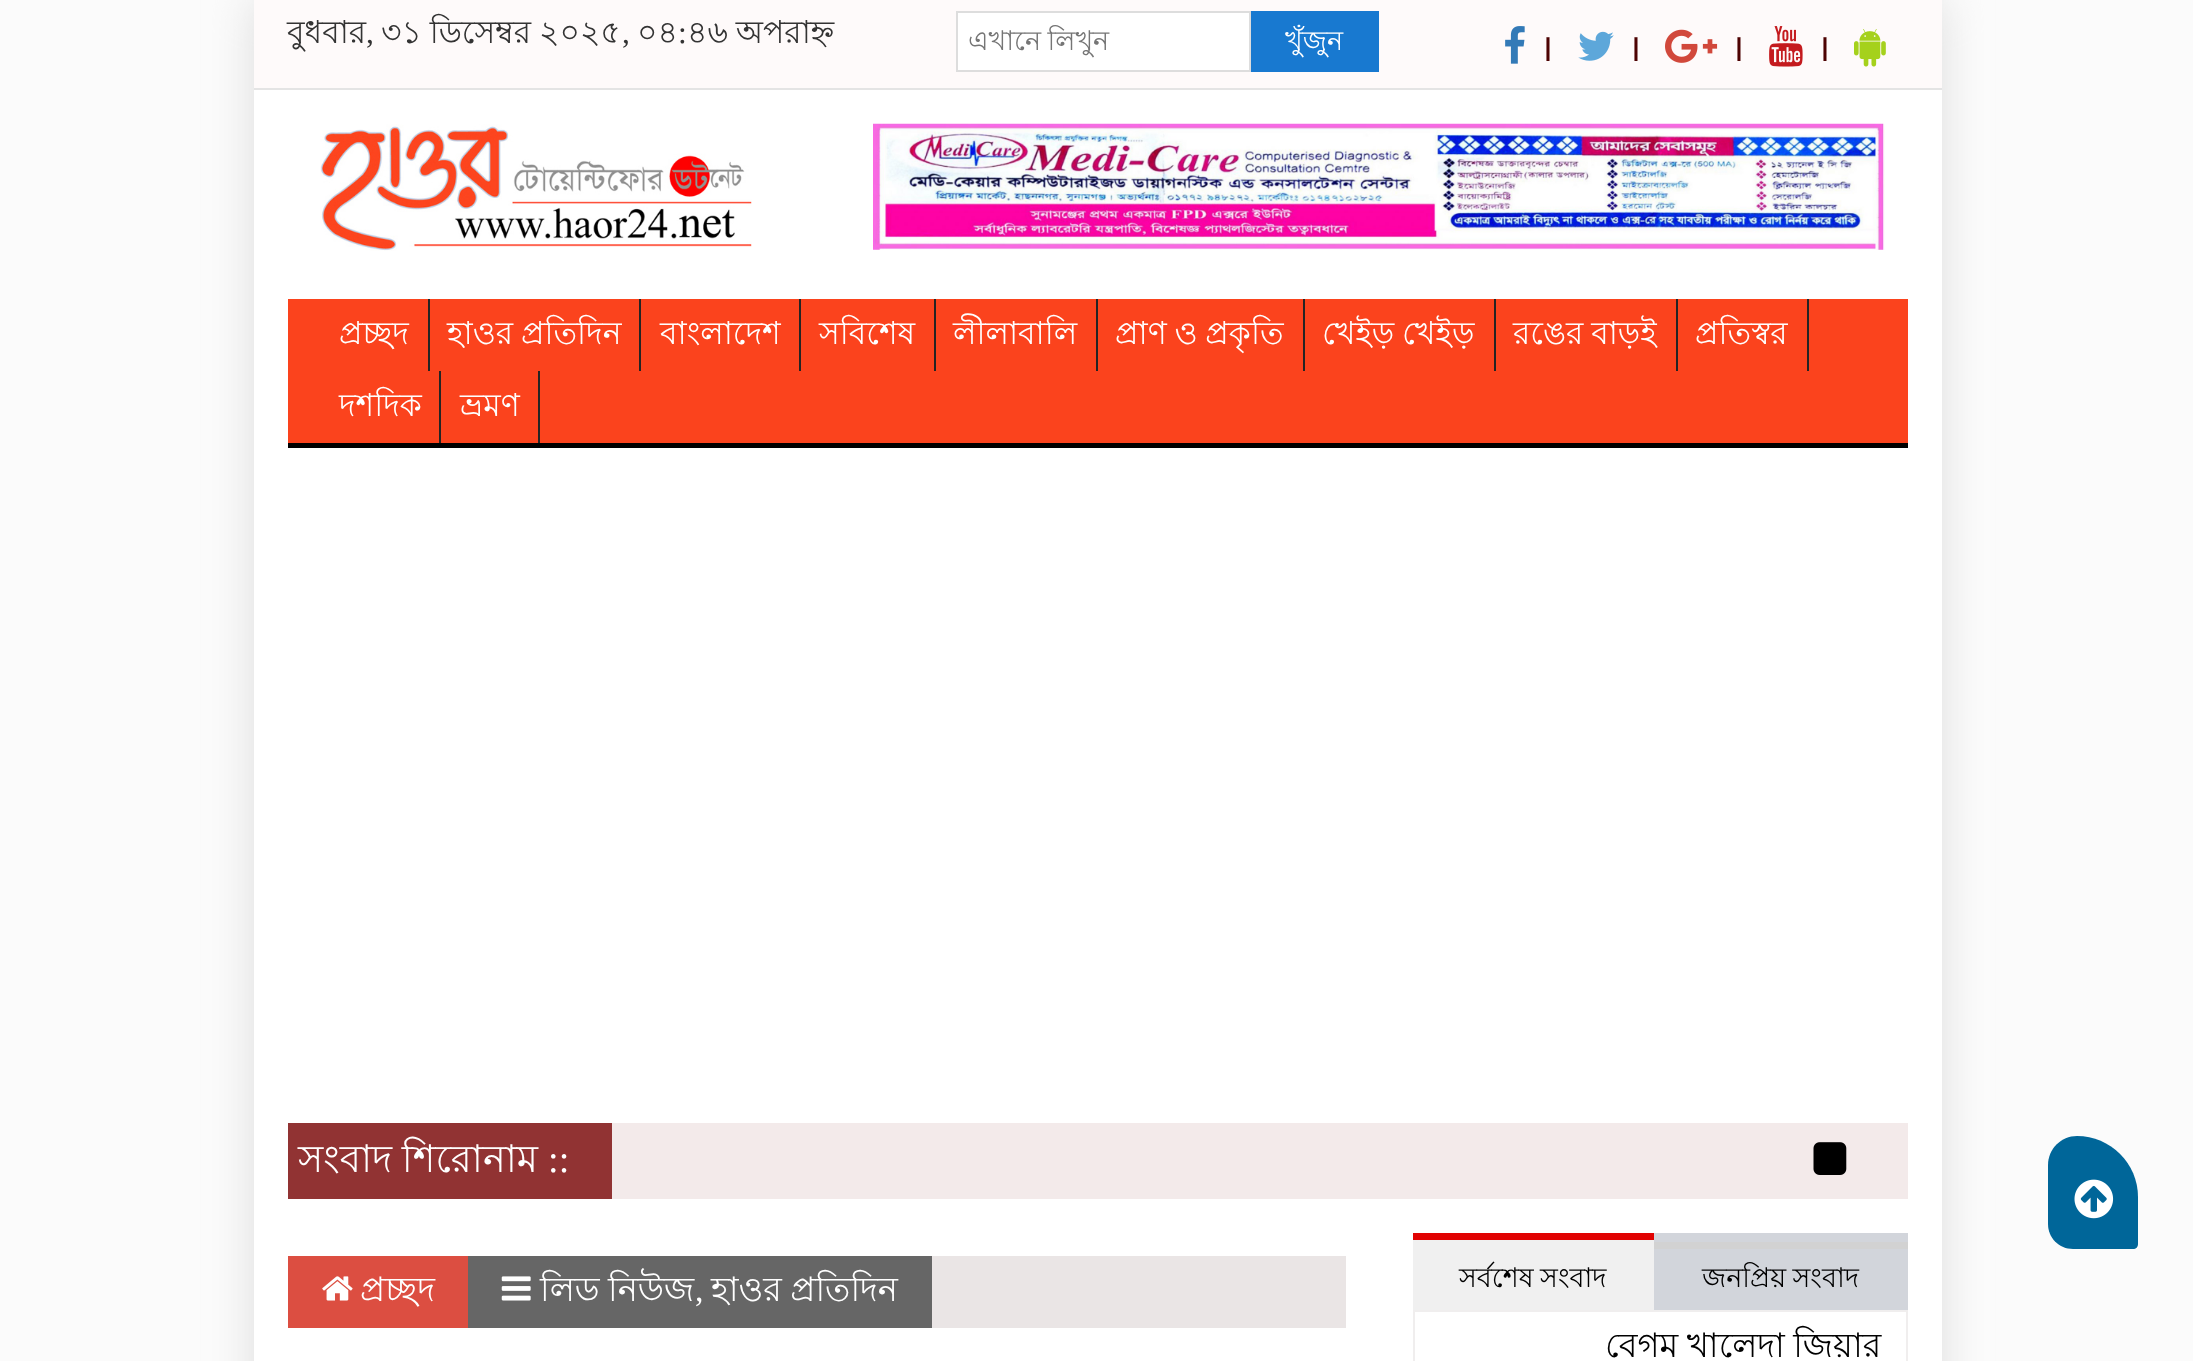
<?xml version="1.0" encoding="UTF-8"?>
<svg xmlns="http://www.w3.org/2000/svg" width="2193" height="1361">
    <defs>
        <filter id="blur1" x="-50%" y="-200%" width="200%" height="500%"><feGaussianBlur stdDeviation="22.5"/></filter>
    </defs>
    <rect width="100%" height="100%" fill="#FBFBFB"/>
    <rect x="254" y="0" width="1688" height="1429" fill="#DDDDDD" filter="url(#blur1)"/>
    <rect x="254" y="90" width="1688" height="1271" fill="#FFFFFF"/>
    <rect x="254" y="0" width="1688" height="88" fill="#FEFAFA"/>
    <rect x="254" y="88" width="1688" height="2" fill="#E4E4E4"/>
    <text x="287" y="43" font-family="Lohit Bengali" font-size="31.5" fill="#333333">বুধবার</text>
    <text x="366" y="43" font-family="Liberation Serif" font-size="31.5" fill="#333333">,</text>
    <text x="381" y="43" word-spacing="-1" font-family="Lohit Bengali" font-size="31.5" fill="#333333">৩১ ডিসেম্বর ২০২৫</text>
    <text x="622" y="43" font-family="Liberation Serif" font-size="31.5" fill="#333333">,</text>
    <text x="637" y="43" font-family="Lohit Bengali" font-size="31.5" fill="#333333">০৪</text>
    <text x="678" y="43" font-family="Liberation Serif" font-size="31.5" fill="#333333">:</text>
    <text x="687" y="43" word-spacing="-1" font-family="Lohit Bengali" font-size="31.5" fill="#333333">৪৬ অপরাহ্ন</text>
    <rect x="957" y="12" width="293" height="59" fill="#FFFFFF" stroke="#DDDDDD" stroke-width="2"/>
    <text x="968" y="50" word-spacing="-1" font-family="Lohit Bengali" font-size="27" fill="#757575">এখানে লিখুন</text>
    <rect x="1251" y="11" width="128" height="61" fill="#1879D0"/>
    <text x="1285" y="50" font-family="Lohit Bengali" font-size="27" fill="#FFFFFF">খুঁজুন</text>
    <image x="1505" y="26" width="20" height="38" href="img_01.png"/>
    <text x="1539" y="61" font-family="Noto Sans" font-size="38.25" fill="#4D0202">।</text>
    <image x="1578" y="31" width="36" height="30" href="img_02.png"/>
    <text x="1627" y="61" font-family="Noto Sans" font-size="38.25" fill="#4D0202">।</text>
    <image x="1665" y="29" width="53" height="34" href="img_03.png"/>
    <text x="1730" y="61" font-family="Noto Sans" font-size="38.25" fill="#4D0202">।</text>
    <image x="1769" y="26" width="34" height="41" href="img_04.png"/>
    <text x="1816" y="61" font-family="Noto Sans" font-size="38.25" fill="#4D0202">।</text>
    <image x="1854" y="29" width="32" height="38" href="img_05.png"/>
    <image x="320" y="124" width="432" height="127" href="img_06.png"/>
    <image x="873" y="123" width="1012" height="127" href="img_07.png"/>
    <rect x="288" y="299" width="1620" height="144" fill="#FB431D"/>
    <rect x="288" y="443" width="1620" height="5" fill="#000000"/>
    <rect x="428" y="299" width="2" height="72" fill="#242424"/>
    <text x="339" y="344" font-family="Lohit Bengali" font-size="31.5" fill="#FFFFFF">প্রচ্ছদ</text>
    <rect x="639" y="299" width="2" height="72" fill="#242424"/>
    <text x="447" y="344" word-spacing="-1" font-family="Lohit Bengali" font-size="31.5" fill="#FFFFFF">হাওর প্রতিদিন</text>
    <rect x="799" y="299" width="2" height="72" fill="#242424"/>
    <text x="660" y="344" font-family="Lohit Bengali" font-size="31.5" fill="#FFFFFF">বাংলাদেশ</text>
    <rect x="934" y="299" width="2" height="72" fill="#242424"/>
    <text x="819" y="344" font-family="Lohit Bengali" font-size="31.5" fill="#FFFFFF">সবিশেষ</text>
    <rect x="1096" y="299" width="2" height="72" fill="#242424"/>
    <text x="953" y="344" font-family="Lohit Bengali" font-size="31.5" fill="#FFFFFF">লীলাবালি</text>
    <rect x="1303" y="299" width="2" height="72" fill="#242424"/>
    <text x="1115" y="344" word-spacing="-1" font-family="Lohit Bengali" font-size="31.5" fill="#FFFFFF">প্রাণ ও প্রকৃতি</text>
    <rect x="1494" y="299" width="2" height="72" fill="#242424"/>
    <text x="1322" y="344" word-spacing="-1" font-family="Lohit Bengali" font-size="31.5" fill="#FFFFFF">খেইড় খেইড়</text>
    <rect x="1676" y="299" width="2" height="72" fill="#242424"/>
    <text x="1513" y="344" word-spacing="-1" font-family="Lohit Bengali" font-size="31.5" fill="#FFFFFF">রঙের বাড়ই</text>
    <rect x="1807" y="299" width="2" height="72" fill="#242424"/>
    <text x="1695" y="344" font-family="Lohit Bengali" font-size="31.5" fill="#FFFFFF">প্রতিস্বর</text>
    <rect x="439" y="371" width="2" height="72" fill="#242424"/>
    <text x="339" y="416" font-family="Lohit Bengali" font-size="31.5" fill="#FFFFFF">দশদিক</text>
    <rect x="538" y="371" width="2" height="72" fill="#242424"/>
    <text x="460" y="416" font-family="Lohit Bengali" font-size="31.5" fill="#FFFFFF">ভ্রমণ</text>
    <rect x="288" y="1123" width="324" height="76" fill="#913333"/>
    <text x="298" y="1172" word-spacing="-1" font-family="Lohit Bengali" font-size="38.25" fill="#FFFFFF">সংবাদ শিরোনাম</text>
    <text x="548" y="1172" font-family="Liberation Serif" font-size="38.25" fill="#FFFFFF">::</text>
    <rect x="612" y="1123" width="1296" height="76" fill="#F3EAEA"/>
    <image x="1813" y="1142" width="34" height="33" href="img_08.png"/>
    <path d="M 2077 1136 C 2110.5 1136 2138 1163.5 2138 1197 V 1244 C 2138 1247 2136 1249 2133 1249 H 2073 C 2059 1249 2048 1238 2048 1224 V 1165 C 2048 1149 2061 1136 2077 1136 Z" fill="#006699"/>
    <image x="2074" y="1179" width="40" height="40" href="img_09.png"/>
    <rect x="932" y="1256" width="414" height="72" fill="#EAE5E5"/>
    <rect x="288" y="1256" width="180" height="72" fill="#DC4E41"/>
    <image x="322" y="1276" width="31" height="25" href="img_10.png"/>
    <text x="360" y="1301" font-family="Lohit Bengali" font-size="33.75" fill="#FFFFFF">প্রচ্ছদ</text>
    <rect x="468" y="1256" width="464" height="72" fill="#666666"/>
    <image x="501" y="1276" width="30" height="25" href="img_11.png"/>
    <text x="540" y="1301" word-spacing="-1" font-family="Lohit Bengali" font-size="33.75" fill="#FFFFFF">লিড নিউজ</text>
    <text x="711" y="1301" word-spacing="-1" font-family="Lohit Bengali" font-size="33.75" fill="#FFFFFF">হাওর প্রতিদিন</text>
    <text x="695" y="1301" font-family="Liberation Serif" font-size="33.75" fill="#FFFFFF">,</text>
    <rect x="1654" y="1233" width="254" height="77" fill="#D2D5DB"/>
    <rect x="1413" y="1240" width="241" height="70" fill="#F0F0F0"/>
    <rect x="1413" y="1233" width="241" height="7" fill="#E10202"/>
    <text x="1459" y="1287" word-spacing="-1" font-family="Lohit Bengali" font-size="27" fill="#000000">সর্বশেষ সংবাদ</text>
    <rect x="1654" y="1242" width="254" height="7" fill="#D2D2D2"/>
    <text x="1702" y="1287" word-spacing="-1" font-family="Lohit Bengali" font-size="27" fill="#000000">জনপ্রিয় সংবাদ</text>
    <rect x="1414" y="1311" width="493" height="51" fill="none" stroke="#F0EEEE" stroke-width="2"/>
    <text x="1605" y="1357" word-spacing="-1" font-family="Lohit Bengali" font-size="33.75" fill="#000000">বেগম খালেদা জিয়ার</text>
</svg>
